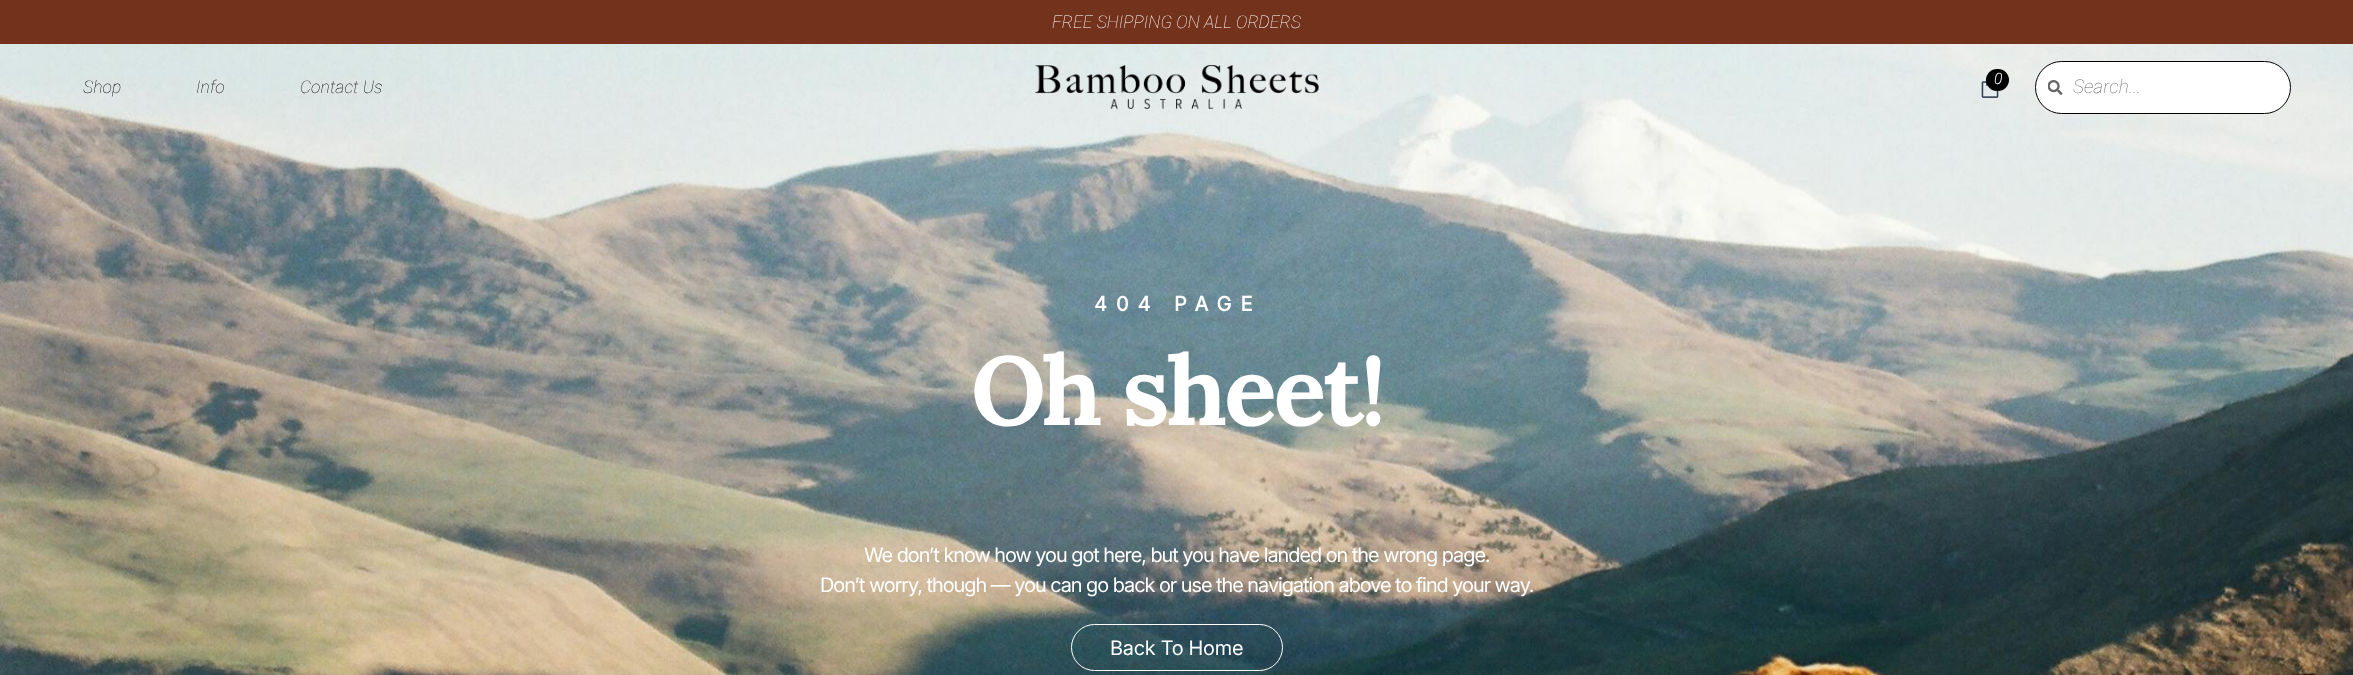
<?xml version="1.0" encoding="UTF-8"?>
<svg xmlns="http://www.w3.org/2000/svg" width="2353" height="675">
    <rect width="100%" height="100%" fill="#FFFFFF"/>
    <rect x="0" y="0" width="2353" height="44" fill="#73321C"/>
    <text x="1052" y="28" font-family="Roboto" font-size="17.5" font-weight="100" font-style="italic" fill="#FFFFFF">FREE SHIPPING ON ALL ORDERS</text>
    <image x="0" y="44" width="2353" height="631" href="img_04.png"/>
    <text x="83" y="93" font-family="Roboto" font-size="17.5" font-weight="100" font-style="italic" fill="#000000">Shop</text>
    <text x="196" y="93" font-family="Roboto" font-size="17.5" font-weight="100" font-style="italic" fill="#000000">Info</text>
    <text x="300" y="93" font-family="Roboto" font-size="17.5" font-weight="100" font-style="italic" fill="#000000">Contact Us</text>
    <image x="1035" y="65" width="284" height="44" href="img_01.png"/>
    <image x="1981" y="78" width="18" height="20" href="img_02.png"/>
    <rect x="1986" y="69" width="23" height="22" rx="11" fill="#000000"/>
    <text x="1994" y="84" font-family="Roboto" font-size="15" font-weight="700" font-style="italic" fill="#FFFFFF">0</text>
    <rect x="2035.5" y="61.5" width="255" height="52" rx="26" fill="#FFFFFF" stroke="#000000"/>
    <image x="2048" y="80" width="15" height="15" href="img_03.png"/>
    <text x="2073" y="93" font-family="Roboto" font-size="19" font-weight="100" font-style="italic" fill="#666666">Search...</text>
    <text x="1094" y="311" font-family="Inter" font-size="20" font-weight="700" letter-spacing="9" fill="#FFFFFF">404 PAGE</text>
    <text x="971" y="425" font-family="Lora" font-size="97.5" font-weight="700" letter-spacing="-2.9" fill="#FFFFFF">Oh sheet!</text>
    <text x="864" y="562" font-family="Inter" font-size="20" letter-spacing="-1" fill="#FFFFFF">We don’t know how you got here, but you have landed on the wrong page.</text>
    <text x="820" y="592" font-family="Inter" font-size="20" letter-spacing="-1" fill="#FFFFFF">Don’t worry, though — you can go back or use the navigation above to find your way.</text>
    <rect x="1071.5" y="624.5" width="211" height="46" rx="23" fill="none" stroke="#FFFFFF"/>
    <text x="1110" y="655" font-family="Inter" font-size="20" letter-spacing="-0.25" fill="#FFFFFF">Back To Home</text>
</svg>
